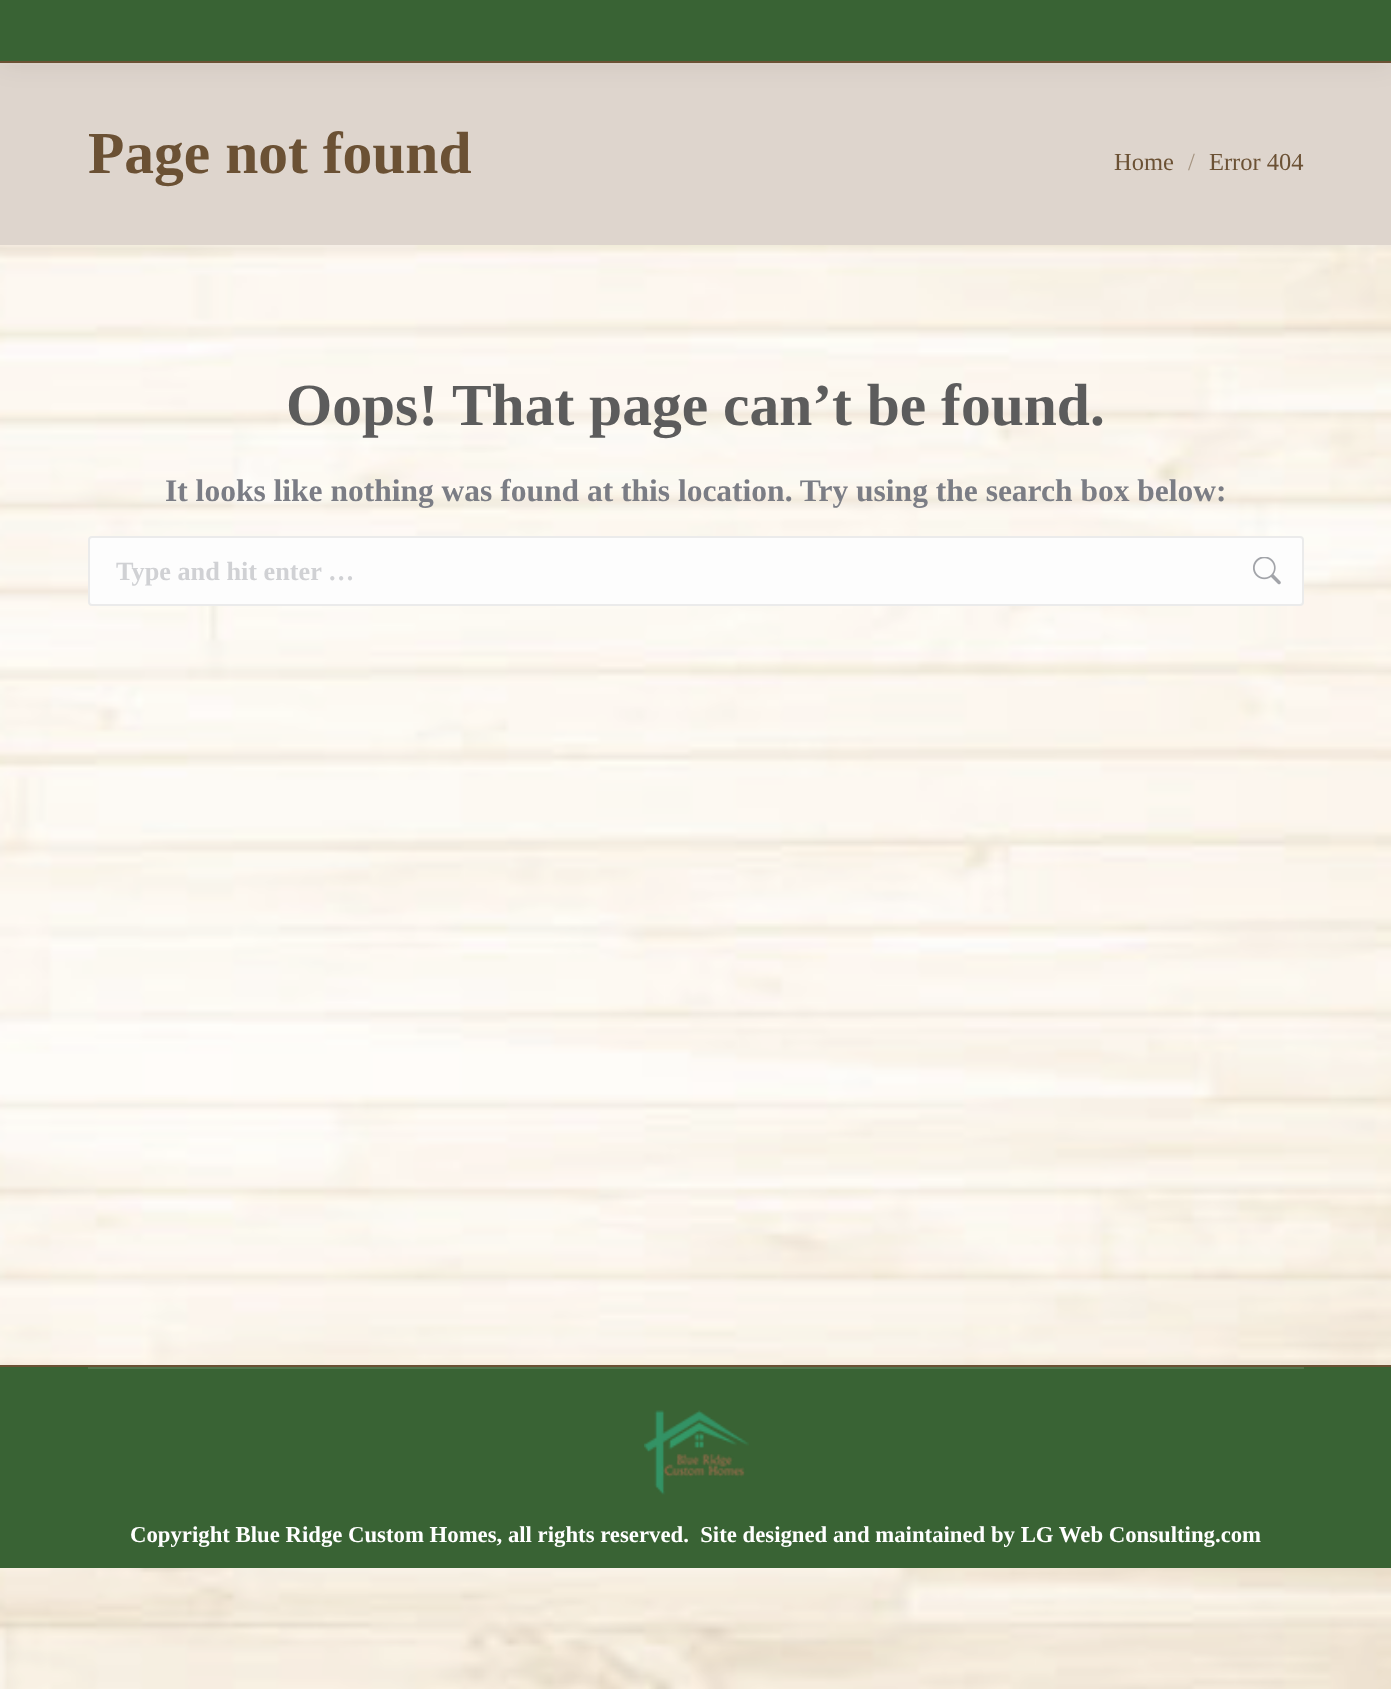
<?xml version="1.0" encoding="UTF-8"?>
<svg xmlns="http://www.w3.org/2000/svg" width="1391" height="1689">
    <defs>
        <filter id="blur1" x="-50%" y="-200%" width="200%" height="500%"><feGaussianBlur stdDeviation="13"/></filter>
        <clipPath id="clip1"><rect x="116" y="557" width="1134" height="29"/></clipPath>
    </defs>
    <rect width="100%" height="100%" fill="#FFFFFF"/>
    <image x="0" y="245" width="1391" height="1444" href="img_01.png"/>
    <rect x="0" y="63" width="1391" height="182" fill="#DED5CD"/>
    <rect x="-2" y="-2" width="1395" height="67" fill="#333333" fill-opacity="0.07" filter="url(#blur1)"/>
    <rect x="0" y="0" width="1391" height="61" fill="#396334"/>
    <rect x="0" y="61" width="1391" height="2" fill="#6B5134"/>
    <text x="88" y="173" font-family="Liberation Serif" font-size="59.5" font-weight="700" fill="#6B5134">Page not found</text>
    <text x="1114" y="170" font-family="Liberation Serif" font-size="24.5" fill="#6B5134">Home</text>
    <text x="1188" y="170" font-family="Liberation Serif" font-size="24.5" fill="#A59481">/</text>
    <text x="1209" y="170" font-family="Liberation Serif" font-size="24.5" fill="#6B5134">Error 404</text>
    <text x="286" y="425" font-family="Liberation Serif" font-size="59.5" font-weight="700" fill="#5C5C5C">Oops! That page can’t be found.</text>
    <text x="165" y="501" font-family="Liberation Serif" font-size="31.5" font-weight="700" fill="#7B7D85">It looks like nothing was found at this location. Try using the search box below:</text>
    <rect x="88" y="536" width="1216" height="70" rx="4" fill="#FDFDFD"/>
    <rect x="89" y="537" width="1214" height="68" rx="3" fill="none" stroke="#5C5C5C" stroke-opacity="0.11" stroke-width="2"/>
    <g clip-path="url(#clip1)">
        <text x="116" y="580" font-family="Liberation Serif" font-size="26.25" font-weight="700" fill="#D0D1D4">Type and hit enter …</text>
    </g>
    <image x="1253" y="557" width="28" height="28" href="img_02.png"/>
    <rect x="0" y="1367" width="1391" height="201" fill="#396334"/>
    <rect x="0" y="1365" width="1391" height="2" fill="#6B5134"/>
    <rect x="88" y="1367" width="1216" height="2" fill="#51754C"/>
    <image x="644" y="1410" width="105" height="85" href="img_03.png"/>
    <text x="130" y="1542" font-family="Liberation Serif" font-size="22.75" font-weight="700" fill="#FFFFFF" xml:space="preserve">Copyright Blue Ridge Custom Homes, all rights reserved.  Site designed and maintained by LG Web Consulting.com</text>
</svg>
